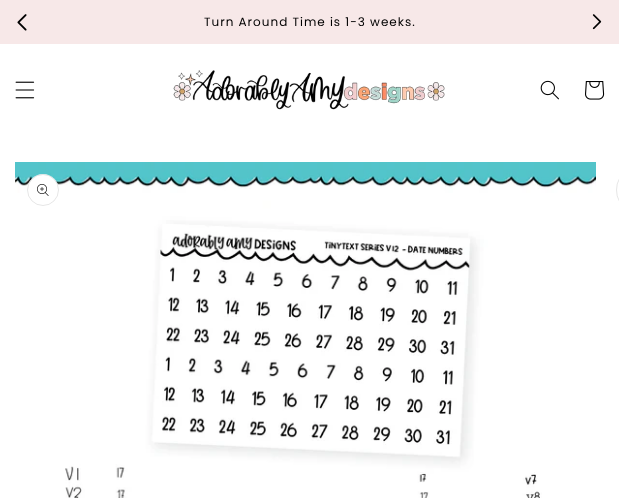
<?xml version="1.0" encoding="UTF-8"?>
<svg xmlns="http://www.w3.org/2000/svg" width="619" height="498">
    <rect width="100%" height="100%" fill="#FFFFFF"/>
    <rect x="0" y="0" width="619" height="44" fill="#F7E8E8"/>
    <image x="17" y="14" width="10" height="17" href="img_01.png"/>
    <text x="204" y="26" font-family="Poppins" font-size="12" letter-spacing="1" fill="#000000">Turn Around Time is 1-3 weeks.</text>
    <image x="592" y="14" width="10" height="16" href="img_02.png"/>
    <image x="15" y="81" width="20" height="18" href="img_03.png"/>
    <image x="173" y="70" width="272" height="40" href="img_04.png"/>
    <image x="540" y="80" width="19" height="20" href="img_05.png"/>
    <image x="585" y="81" width="20" height="19" href="img_06.png"/>
    <image x="15" y="162" width="581" height="336" href="img_07.png"/>
    <circle cx="43" cy="190" r="16" fill="#FFFFFF"/>
    <circle cx="43" cy="190" r="15.5" fill="none" stroke="#000000" stroke-opacity="0.1"/>
    <image x="37" y="184" width="12" height="12" href="img_08.png"/>
    <rect x="616.5" y="174.5" width="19" height="31" rx="15.5" fill="none" stroke="#E6E6E6"/>
</svg>
